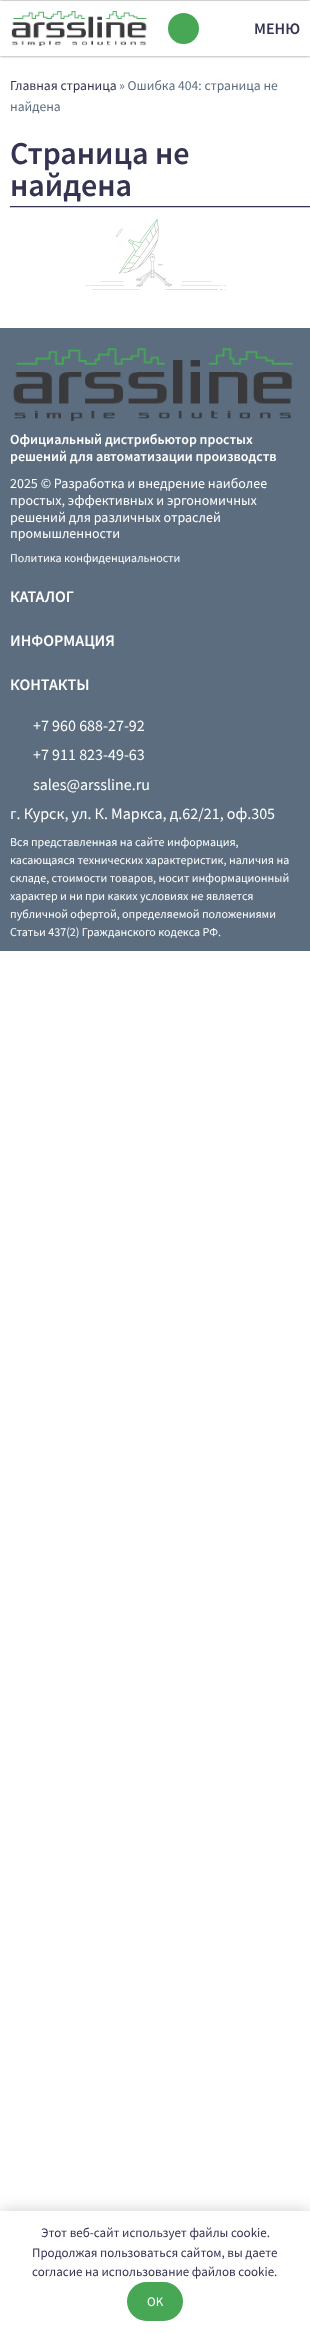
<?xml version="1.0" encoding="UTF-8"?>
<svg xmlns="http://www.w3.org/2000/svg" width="310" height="2333">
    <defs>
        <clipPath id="clip1"><path d="M 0 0 H 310 V 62 H 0 Z M 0 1 H 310 V 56 H 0 Z" clip-rule="evenodd"/></clipPath>
        <filter id="blur1" x="-50%" y="-200%" width="200%" height="500%"><feGaussianBlur stdDeviation="1.5"/></filter>
        <filter id="blur2" x="-50%" y="-200%" width="200%" height="500%"><feGaussianBlur stdDeviation="7.5"/></filter>
    </defs>
    <rect width="100%" height="100%" fill="#FFFFFF"/>
    <g clip-path="url(#clip1)">
        <rect x="0" y="1" width="310" height="55" fill="#000000" fill-opacity="0.5" filter="url(#blur1)"/>
    </g>
    <image x="11" y="11" width="136" height="35" href="img_01.png"/>
    <circle cx="183.5" cy="28.5" r="15.5" fill="#47A755"/>
    <text x="254" y="34" font-family="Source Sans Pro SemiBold" font-size="16" font-weight="600" fill="#343351">МЕНЮ</text>
    <text x="10" y="90" font-family="Source Sans Pro" font-size="13.6" fill="#343351">Главная страница</text>
    <text x="119" y="90" font-family="Source Sans Pro" font-size="13.6" fill="#5C6D7F">» Ошибка 404: страница не</text>
    <text x="10" y="111" font-family="Source Sans Pro" font-size="13.6" fill="#5C6D7F">найдена</text>
    <rect x="10" y="207" width="300" height="1" fill="#C8C8D0"/>
    <rect x="10" y="206" width="300" height="1" fill="#343351"/>
    <text font-family="Source Sans Pro SemiBold" font-size="32" font-weight="600" fill="#343351">
        <tspan x="10" y="164">Страница не</tspan>
        <tspan x="10" y="196">найдена</tspan>
    </text>
    <image x="85" y="219" width="142" height="71" href="img_02.png"/>
    <rect x="0" y="328" width="310" height="623" fill="#5C6D7F"/>
    <image x="13" y="348" width="280" height="73" href="img_03.png"/>
    <text font-family="Source Sans Pro SemiBold" font-size="14" font-weight="600" fill="#FFFFFF">
        <tspan x="10" y="444">Официальный дистрибьютор простых</tspan>
        <tspan x="10" y="461">решений для автоматизации производств</tspan>
    </text>
    <text font-family="Source Sans Pro" font-size="14" fill="#FFFFFF">
        <tspan x="10" y="488">2025 © Разработка и внедрение наиболее</tspan>
        <tspan x="10" y="505">простых, эффективных и эргономичных</tspan>
        <tspan x="10" y="522">решений для различных отраслей</tspan>
        <tspan x="10" y="538">промышленности</tspan>
    </text>
    <text x="10" y="562" font-family="Source Sans Pro" font-size="12" fill="#FFFFFF">Политика конфиденциальности</text>
    <text x="10" y="602" font-family="Source Sans Pro SemiBold" font-size="16" font-weight="600" fill="#FFFFFF">КАТАЛОГ</text>
    <text x="10" y="646" font-family="Source Sans Pro SemiBold" font-size="16" font-weight="600" fill="#FFFFFF">ИНФОРМАЦИЯ</text>
    <text x="10" y="690" font-family="Source Sans Pro SemiBold" font-size="16" font-weight="600" fill="#FFFFFF">КОНТАКТЫ</text>
    <text font-family="Source Sans Pro" font-size="16" fill="#FFFFFF">
        <tspan x="33" y="731">+7 960 688-27-92</tspan>
        <tspan x="33" y="760">+7 911 823-49-63</tspan>
        <tspan x="33" y="790">sales@arssline.ru</tspan>
    </text>
    <text x="10" y="819" font-family="Source Sans Pro" font-size="16" fill="#FFFFFF">г. Курск, ул. К. Маркса, д.62/21, оф.305</text>
    <text font-family="Source Sans Pro" font-size="12" fill="#FFFFFF">
        <tspan x="10" y="846">Вся представленная на сайте информация,</tspan>
        <tspan x="10" y="864">касающаяся технических характеристик, наличия на</tspan>
        <tspan x="10" y="882">складе, стоимости товаров, носит информационный</tspan>
        <tspan x="10" y="900">характер и ни при каких условиях не является</tspan>
        <tspan x="10" y="918">публичной офертой, определяемой положениями</tspan>
        <tspan x="10" y="936">Статьи 437(2) Гражданского кодекса РФ.</tspan>
    </text>
    <rect x="0" y="2211" width="310" height="122" fill="#000000" fill-opacity="0.2" filter="url(#blur2)"/>
    <rect x="0" y="2211" width="310" height="122" fill="#FFFFFF"/>
    <text x="41" y="2237" font-family="Source Sans Pro" font-size="13" fill="#343351">Этот веб-сайт использует файлы cookie.</text>
    <text font-family="Source Sans Pro" font-size="13" fill="#343351">
        <tspan x="32" y="2257">Продолжая пользоваться сайтом, вы даете</tspan>
        <tspan x="32" y="2276">согласие на использование файлов cookie.</tspan>
    </text>
    <rect x="127" y="2282" width="56" height="39" rx="19.5" fill="#47A755"/>
    <text x="147" y="2306" font-family="Source Sans Pro" font-size="13" fill="#FFFFFF">OK</text>
</svg>
